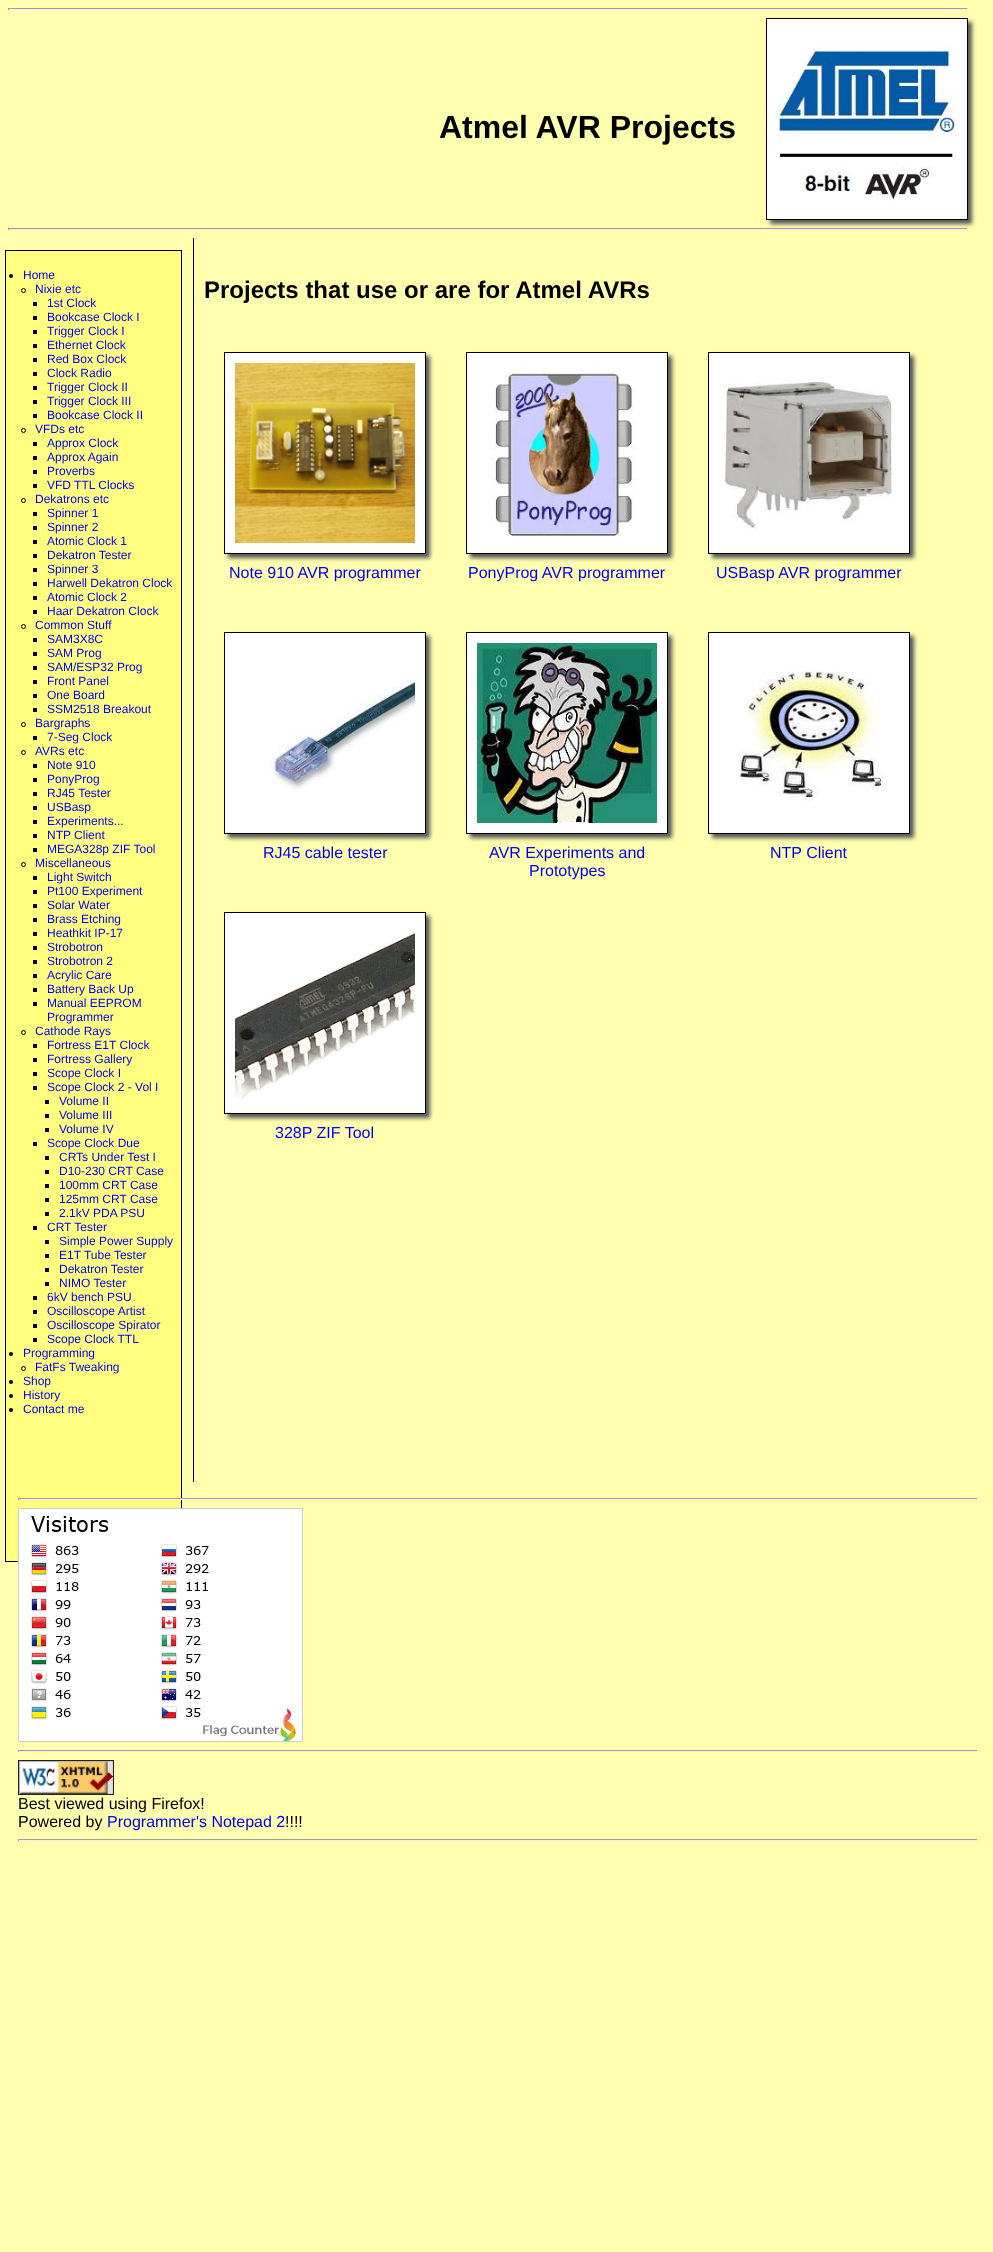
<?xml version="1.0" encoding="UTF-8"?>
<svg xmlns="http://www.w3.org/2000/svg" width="993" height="2252">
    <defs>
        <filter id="blur1" x="-50%" y="-200%" width="200%" height="500%"><feGaussianBlur stdDeviation="2"/></filter>
    </defs>
    <rect width="100%" height="100%" fill="#FFFFB0"/>
    <rect x="8" y="8" width="960" height="1" fill="#9F9F9F"/>
    <rect x="967" y="8" width="1" height="2" fill="#EEEEEE"/>
    <rect x="8" y="9" width="960" height="1" fill="#EEEEEE"/>
    <rect x="8" y="8" width="1" height="2" fill="#9F9F9F"/>
    <text x="439" y="138" font-family="Liberation Sans" font-size="32" font-weight="700" fill="#000000">Atmel AVR Projects</text>
    <rect x="770" y="22" width="202" height="202" fill="#555555" filter="url(#blur1)"/>
    <rect x="766.5" y="18.5" width="201" height="201" fill="#FFFFFF" stroke="#000000"/>
    <image x="777" y="41" width="180" height="161" href="img_01.png"/>
    <rect x="8" y="228" width="960" height="1" fill="#9F9F9F"/>
    <rect x="967" y="228" width="1" height="2" fill="#EEEEEE"/>
    <rect x="8" y="229" width="960" height="1" fill="#EEEEEE"/>
    <rect x="8" y="228" width="1" height="2" fill="#9F9F9F"/>
    <rect x="5.5" y="250.5" width="176" height="1311" fill="#FFFF80" stroke="#000000"/>
    <circle cx="11" cy="276" r="2" fill="#000000"/>
    <text x="23" y="279" font-family="Liberation Sans" font-size="12" fill="#0000EE">Home</text>
    <circle cx="23.5" cy="290.5" r="2" fill="none" stroke="#000000"/>
    <text x="35" y="293" font-family="Liberation Sans" font-size="12" fill="#0000EE">Nixie etc</text>
    <rect x="33" y="302" width="4" height="4" fill="#000000"/>
    <text x="47" y="307" font-family="Liberation Sans" font-size="12" fill="#0000EE">1st Clock</text>
    <rect x="33" y="316" width="4" height="4" fill="#000000"/>
    <text x="47" y="321" font-family="Liberation Sans" font-size="12" fill="#0000EE">Bookcase Clock I</text>
    <rect x="33" y="330" width="4" height="4" fill="#000000"/>
    <text x="47" y="335" font-family="Liberation Sans" font-size="12" fill="#0000EE">Trigger Clock I</text>
    <rect x="33" y="344" width="4" height="4" fill="#000000"/>
    <text x="47" y="349" font-family="Liberation Sans" font-size="12" fill="#0000EE">Ethernet Clock</text>
    <rect x="33" y="358" width="4" height="4" fill="#000000"/>
    <text x="47" y="363" font-family="Liberation Sans" font-size="12" fill="#0000EE">Red Box Clock</text>
    <rect x="33" y="372" width="4" height="4" fill="#000000"/>
    <text x="47" y="377" font-family="Liberation Sans" font-size="12" fill="#0000EE">Clock Radio</text>
    <rect x="33" y="386" width="4" height="4" fill="#000000"/>
    <text x="47" y="391" font-family="Liberation Sans" font-size="12" fill="#0000EE">Trigger Clock II</text>
    <rect x="33" y="400" width="4" height="4" fill="#000000"/>
    <text x="47" y="405" font-family="Liberation Sans" font-size="12" fill="#0000EE">Trigger Clock III</text>
    <rect x="33" y="414" width="4" height="4" fill="#000000"/>
    <text x="47" y="419" font-family="Liberation Sans" font-size="12" fill="#0000EE">Bookcase Clock II</text>
    <circle cx="23.5" cy="430.5" r="2" fill="none" stroke="#000000"/>
    <text x="35" y="433" font-family="Liberation Sans" font-size="12" fill="#0000EE">VFDs etc</text>
    <rect x="33" y="442" width="4" height="4" fill="#000000"/>
    <text x="47" y="447" font-family="Liberation Sans" font-size="12" fill="#0000EE">Approx Clock</text>
    <rect x="33" y="456" width="4" height="4" fill="#000000"/>
    <text x="47" y="461" font-family="Liberation Sans" font-size="12" fill="#0000EE">Approx Again</text>
    <rect x="33" y="470" width="4" height="4" fill="#000000"/>
    <text x="47" y="475" font-family="Liberation Sans" font-size="12" fill="#0000EE">Proverbs</text>
    <rect x="33" y="484" width="4" height="4" fill="#000000"/>
    <text x="47" y="489" font-family="Liberation Sans" font-size="12" fill="#0000EE">VFD TTL Clocks</text>
    <circle cx="23.5" cy="500.5" r="2" fill="none" stroke="#000000"/>
    <text x="35" y="503" font-family="Liberation Sans" font-size="12" fill="#0000EE">Dekatrons etc</text>
    <rect x="33" y="512" width="4" height="4" fill="#000000"/>
    <text x="47" y="517" font-family="Liberation Sans" font-size="12" fill="#0000EE">Spinner 1</text>
    <rect x="33" y="526" width="4" height="4" fill="#000000"/>
    <text x="47" y="531" font-family="Liberation Sans" font-size="12" fill="#0000EE">Spinner 2</text>
    <rect x="33" y="540" width="4" height="4" fill="#000000"/>
    <text x="47" y="545" font-family="Liberation Sans" font-size="12" fill="#0000EE">Atomic Clock 1</text>
    <rect x="33" y="554" width="4" height="4" fill="#000000"/>
    <text x="47" y="559" font-family="Liberation Sans" font-size="12" fill="#0000EE">Dekatron Tester</text>
    <rect x="33" y="568" width="4" height="4" fill="#000000"/>
    <text x="47" y="573" font-family="Liberation Sans" font-size="12" fill="#0000EE">Spinner 3</text>
    <rect x="33" y="582" width="4" height="4" fill="#000000"/>
    <text x="47" y="587" font-family="Liberation Sans" font-size="12" fill="#0000EE">Harwell Dekatron Clock</text>
    <rect x="33" y="596" width="4" height="4" fill="#000000"/>
    <text x="47" y="601" font-family="Liberation Sans" font-size="12" fill="#0000EE">Atomic Clock 2</text>
    <rect x="33" y="610" width="4" height="4" fill="#000000"/>
    <text x="47" y="615" font-family="Liberation Sans" font-size="12" fill="#0000EE">Haar Dekatron Clock</text>
    <circle cx="23.5" cy="626.5" r="2" fill="none" stroke="#000000"/>
    <text x="35" y="629" font-family="Liberation Sans" font-size="12" fill="#0000EE">Common Stuff</text>
    <rect x="33" y="638" width="4" height="4" fill="#000000"/>
    <text x="47" y="643" font-family="Liberation Sans" font-size="12" fill="#0000EE">SAM3X8C</text>
    <rect x="33" y="652" width="4" height="4" fill="#000000"/>
    <text x="47" y="657" font-family="Liberation Sans" font-size="12" fill="#0000EE">SAM Prog</text>
    <rect x="33" y="666" width="4" height="4" fill="#000000"/>
    <text x="47" y="671" font-family="Liberation Sans" font-size="12" fill="#0000EE">SAM/ESP32 Prog</text>
    <rect x="33" y="680" width="4" height="4" fill="#000000"/>
    <text x="47" y="685" font-family="Liberation Sans" font-size="12" fill="#0000EE">Front Panel</text>
    <rect x="33" y="694" width="4" height="4" fill="#000000"/>
    <text x="47" y="699" font-family="Liberation Sans" font-size="12" fill="#0000EE">One Board</text>
    <rect x="33" y="708" width="4" height="4" fill="#000000"/>
    <text x="47" y="713" font-family="Liberation Sans" font-size="12" fill="#0000EE">SSM2518 Breakout</text>
    <circle cx="23.5" cy="724.5" r="2" fill="none" stroke="#000000"/>
    <text x="35" y="727" font-family="Liberation Sans" font-size="12" fill="#0000EE">Bargraphs</text>
    <rect x="33" y="736" width="4" height="4" fill="#000000"/>
    <text x="47" y="741" font-family="Liberation Sans" font-size="12" fill="#0000EE">7-Seg Clock</text>
    <circle cx="23.5" cy="752.5" r="2" fill="none" stroke="#000000"/>
    <text x="35" y="755" font-family="Liberation Sans" font-size="12" fill="#0000EE">AVRs etc</text>
    <rect x="33" y="764" width="4" height="4" fill="#000000"/>
    <text x="47" y="769" font-family="Liberation Sans" font-size="12" fill="#0000EE">Note 910</text>
    <rect x="33" y="778" width="4" height="4" fill="#000000"/>
    <text x="47" y="783" font-family="Liberation Sans" font-size="12" fill="#0000EE">PonyProg</text>
    <rect x="33" y="792" width="4" height="4" fill="#000000"/>
    <text x="47" y="797" font-family="Liberation Sans" font-size="12" fill="#0000EE">RJ45 Tester</text>
    <rect x="33" y="806" width="4" height="4" fill="#000000"/>
    <text x="47" y="811" font-family="Liberation Sans" font-size="12" fill="#0000EE">USBasp</text>
    <rect x="33" y="820" width="4" height="4" fill="#000000"/>
    <text x="47" y="825" font-family="Liberation Sans" font-size="12" fill="#0000EE">Experiments...</text>
    <rect x="33" y="834" width="4" height="4" fill="#000000"/>
    <text x="47" y="839" font-family="Liberation Sans" font-size="12" fill="#0000EE">NTP Client</text>
    <rect x="33" y="848" width="4" height="4" fill="#000000"/>
    <text x="47" y="853" font-family="Liberation Sans" font-size="12" fill="#0000EE">MEGA328p ZIF Tool</text>
    <circle cx="23.5" cy="864.5" r="2" fill="none" stroke="#000000"/>
    <text x="35" y="867" font-family="Liberation Sans" font-size="12" fill="#0000EE">Miscellaneous</text>
    <rect x="33" y="876" width="4" height="4" fill="#000000"/>
    <text x="47" y="881" font-family="Liberation Sans" font-size="12" fill="#0000EE">Light Switch</text>
    <rect x="33" y="890" width="4" height="4" fill="#000000"/>
    <text x="47" y="895" font-family="Liberation Sans" font-size="12" fill="#0000EE">Pt100 Experiment</text>
    <rect x="33" y="904" width="4" height="4" fill="#000000"/>
    <text x="47" y="909" font-family="Liberation Sans" font-size="12" fill="#0000EE">Solar Water</text>
    <rect x="33" y="918" width="4" height="4" fill="#000000"/>
    <text x="47" y="923" font-family="Liberation Sans" font-size="12" fill="#0000EE">Brass Etching</text>
    <rect x="33" y="932" width="4" height="4" fill="#000000"/>
    <text x="47" y="937" font-family="Liberation Sans" font-size="12" fill="#0000EE">Heathkit IP-17</text>
    <rect x="33" y="946" width="4" height="4" fill="#000000"/>
    <text x="47" y="951" font-family="Liberation Sans" font-size="12" fill="#0000EE">Strobotron</text>
    <rect x="33" y="960" width="4" height="4" fill="#000000"/>
    <text x="47" y="965" font-family="Liberation Sans" font-size="12" fill="#0000EE">Strobotron 2</text>
    <rect x="33" y="974" width="4" height="4" fill="#000000"/>
    <text x="47" y="979" font-family="Liberation Sans" font-size="12" fill="#0000EE">Acrylic Care</text>
    <rect x="33" y="988" width="4" height="4" fill="#000000"/>
    <text x="47" y="993" font-family="Liberation Sans" font-size="12" fill="#0000EE">Battery Back Up</text>
    <rect x="33" y="1002" width="4" height="4" fill="#000000"/>
    <text font-family="Liberation Sans" font-size="12" fill="#0000EE">
        <tspan x="47" y="1007">Manual EEPROM</tspan>
        <tspan x="47" y="1021">Programmer</tspan>
    </text>
    <circle cx="23.5" cy="1032.5" r="2" fill="none" stroke="#000000"/>
    <text x="35" y="1035" font-family="Liberation Sans" font-size="12" fill="#0000EE">Cathode Rays</text>
    <rect x="33" y="1044" width="4" height="4" fill="#000000"/>
    <text x="47" y="1049" font-family="Liberation Sans" font-size="12" fill="#0000EE">Fortress E1T Clock</text>
    <rect x="33" y="1058" width="4" height="4" fill="#000000"/>
    <text x="47" y="1063" font-family="Liberation Sans" font-size="12" fill="#0000EE">Fortress Gallery</text>
    <rect x="33" y="1072" width="4" height="4" fill="#000000"/>
    <text x="47" y="1077" font-family="Liberation Sans" font-size="12" fill="#0000EE">Scope Clock I</text>
    <rect x="33" y="1086" width="4" height="4" fill="#000000"/>
    <text x="47" y="1091" font-family="Liberation Sans" font-size="12" fill="#0000EE">Scope Clock 2 - Vol I</text>
    <rect x="45" y="1100" width="4" height="4" fill="#000000"/>
    <text x="59" y="1105" font-family="Liberation Sans" font-size="12" fill="#0000EE">Volume II</text>
    <rect x="45" y="1114" width="4" height="4" fill="#000000"/>
    <text x="59" y="1119" font-family="Liberation Sans" font-size="12" fill="#0000EE">Volume III</text>
    <rect x="45" y="1128" width="4" height="4" fill="#000000"/>
    <text x="59" y="1133" font-family="Liberation Sans" font-size="12" fill="#0000EE">Volume IV</text>
    <rect x="33" y="1142" width="4" height="4" fill="#000000"/>
    <text x="47" y="1147" font-family="Liberation Sans" font-size="12" fill="#0000EE">Scope Clock Due</text>
    <rect x="45" y="1156" width="4" height="4" fill="#000000"/>
    <text x="59" y="1161" font-family="Liberation Sans" font-size="12" fill="#0000EE">CRTs Under Test I</text>
    <rect x="45" y="1170" width="4" height="4" fill="#000000"/>
    <text x="59" y="1175" font-family="Liberation Sans" font-size="12" fill="#0000EE">D10-230 CRT Case</text>
    <rect x="45" y="1184" width="4" height="4" fill="#000000"/>
    <text x="59" y="1189" font-family="Liberation Sans" font-size="12" fill="#0000EE">100mm CRT Case</text>
    <rect x="45" y="1198" width="4" height="4" fill="#000000"/>
    <text x="59" y="1203" font-family="Liberation Sans" font-size="12" fill="#0000EE">125mm CRT Case</text>
    <rect x="45" y="1212" width="4" height="4" fill="#000000"/>
    <text x="59" y="1217" font-family="Liberation Sans" font-size="12" fill="#0000EE">2.1kV PDA PSU</text>
    <rect x="33" y="1226" width="4" height="4" fill="#000000"/>
    <text x="47" y="1231" font-family="Liberation Sans" font-size="12" fill="#0000EE">CRT Tester</text>
    <rect x="45" y="1240" width="4" height="4" fill="#000000"/>
    <text x="59" y="1245" font-family="Liberation Sans" font-size="12" fill="#0000EE">Simple Power Supply</text>
    <rect x="45" y="1254" width="4" height="4" fill="#000000"/>
    <text x="59" y="1259" font-family="Liberation Sans" font-size="12" fill="#0000EE">E1T Tube Tester</text>
    <rect x="45" y="1268" width="4" height="4" fill="#000000"/>
    <text x="59" y="1273" font-family="Liberation Sans" font-size="12" fill="#0000EE">Dekatron Tester</text>
    <rect x="45" y="1282" width="4" height="4" fill="#000000"/>
    <text x="59" y="1287" font-family="Liberation Sans" font-size="12" fill="#0000EE">NIMO Tester</text>
    <rect x="33" y="1296" width="4" height="4" fill="#000000"/>
    <text x="47" y="1301" font-family="Liberation Sans" font-size="12" fill="#0000EE">6kV bench PSU</text>
    <rect x="33" y="1310" width="4" height="4" fill="#000000"/>
    <text x="47" y="1315" font-family="Liberation Sans" font-size="12" fill="#0000EE">Oscilloscope Artist</text>
    <rect x="33" y="1324" width="4" height="4" fill="#000000"/>
    <text x="47" y="1329" font-family="Liberation Sans" font-size="12" fill="#0000EE">Oscilloscope Spirator</text>
    <rect x="33" y="1338" width="4" height="4" fill="#000000"/>
    <text x="47" y="1343" font-family="Liberation Sans" font-size="12" fill="#0000EE">Scope Clock TTL</text>
    <circle cx="11" cy="1354" r="2" fill="#000000"/>
    <text x="23" y="1357" font-family="Liberation Sans" font-size="12" fill="#0000EE">Programming</text>
    <circle cx="23.5" cy="1368.5" r="2" fill="none" stroke="#000000"/>
    <text x="35" y="1371" font-family="Liberation Sans" font-size="12" fill="#0000EE">FatFs Tweaking</text>
    <circle cx="11" cy="1382" r="2" fill="#000000"/>
    <text x="23" y="1385" font-family="Liberation Sans" font-size="12" fill="#0000EE">Shop</text>
    <circle cx="11" cy="1396" r="2" fill="#000000"/>
    <text x="23" y="1399" font-family="Liberation Sans" font-size="12" fill="#0000EE">History</text>
    <circle cx="11" cy="1410" r="2" fill="#000000"/>
    <text x="23" y="1413" font-family="Liberation Sans" font-size="12" fill="#0000EE">Contact me</text>
    <rect x="193" y="238" width="1" height="1244" fill="#000000"/>
    <text x="204" y="298" font-family="Liberation Sans" font-size="24" font-weight="700" fill="#000000">Projects that use or are for Atmel AVRs</text>
    <rect x="228" y="356" width="202" height="202" fill="#555555" filter="url(#blur1)"/>
    <rect x="224.5" y="352.5" width="201" height="201" fill="#FFFFFF" stroke="#000000"/>
    <image x="235" y="363" width="180" height="180" href="img_02.png"/>
    <text x="229" y="578" font-family="Liberation Sans" font-size="16" fill="#0000EE">Note 910 AVR programmer</text>
    <rect x="470" y="356" width="202" height="202" fill="#555555" filter="url(#blur1)"/>
    <rect x="466.5" y="352.5" width="201" height="201" fill="#FFFFFF" stroke="#000000"/>
    <image x="491" y="363" width="145" height="173" href="img_03.png"/>
    <text x="468" y="578" font-family="Liberation Sans" font-size="16" fill="#0000EE">PonyProg AVR programmer</text>
    <rect x="712" y="356" width="202" height="202" fill="#555555" filter="url(#blur1)"/>
    <rect x="708.5" y="352.5" width="201" height="201" fill="#FFFFFF" stroke="#000000"/>
    <image x="725" y="382" width="167" height="148" href="img_04.png"/>
    <text x="716" y="578" font-family="Liberation Sans" font-size="16" fill="#0000EE">USBasp AVR programmer</text>
    <rect x="228" y="636" width="202" height="202" fill="#555555" filter="url(#blur1)"/>
    <rect x="224.5" y="632.5" width="201" height="201" fill="#FFFFFF" stroke="#000000"/>
    <image x="264" y="675" width="151" height="115" href="img_05.png"/>
    <text x="263" y="858" font-family="Liberation Sans" font-size="16" fill="#0000EE">RJ45 cable tester</text>
    <rect x="470" y="636" width="202" height="202" fill="#555555" filter="url(#blur1)"/>
    <rect x="466.5" y="632.5" width="201" height="201" fill="#FFFFFF" stroke="#000000"/>
    <image x="477" y="643" width="180" height="180" href="img_06.png"/>
    <text x="489" y="858" font-family="Liberation Sans" font-size="16" fill="#0000EE">AVR Experiments and</text>
    <text x="529" y="876" font-family="Liberation Sans" font-size="16" fill="#0000EE">Prototypes</text>
    <rect x="712" y="636" width="202" height="202" fill="#555555" filter="url(#blur1)"/>
    <rect x="708.5" y="632.5" width="201" height="201" fill="#FFFFFF" stroke="#000000"/>
    <image x="735" y="671" width="150" height="131" href="img_07.png"/>
    <text x="770" y="858" font-family="Liberation Sans" font-size="16" fill="#0000EE">NTP Client</text>
    <rect x="228" y="916" width="202" height="202" fill="#555555" filter="url(#blur1)"/>
    <rect x="224.5" y="912.5" width="201" height="201" fill="#FFFFFF" stroke="#000000"/>
    <image x="235" y="933" width="180" height="166" href="img_08.png"/>
    <text x="275" y="1138" font-family="Liberation Sans" font-size="16" fill="#0000EE">328P ZIF Tool</text>
    <rect x="18" y="1498" width="960" height="1" fill="#9F9F9F"/>
    <rect x="977" y="1498" width="1" height="2" fill="#EEEEEE"/>
    <rect x="18" y="1499" width="960" height="1" fill="#EEEEEE"/>
    <rect x="18" y="1498" width="1" height="2" fill="#9F9F9F"/>
    <image x="18" y="1508" width="285" height="234" href="img_09.png"/>
    <rect x="18" y="1750" width="960" height="1" fill="#9F9F9F"/>
    <rect x="977" y="1750" width="1" height="2" fill="#EEEEEE"/>
    <rect x="18" y="1751" width="960" height="1" fill="#EEEEEE"/>
    <rect x="18" y="1750" width="1" height="2" fill="#9F9F9F"/>
    <image x="18" y="1760" width="96" height="35" href="img_10.png"/>
    <text font-family="Liberation Sans" font-size="16" fill="#000000">
        <tspan x="18" y="1809">Best viewed using Firefox!</tspan>
        <tspan x="18" y="1827">Powered by</tspan>
    </text>
    <text x="107" y="1827" font-family="Liberation Sans" font-size="16" fill="#0000EE">Programmer's Notepad 2</text>
    <text x="285" y="1827" font-family="Liberation Sans" font-size="16" fill="#000000">!!!!</text>
    <rect x="18" y="1839" width="960" height="1" fill="#9F9F9F"/>
    <rect x="977" y="1839" width="1" height="2" fill="#EEEEEE"/>
    <rect x="18" y="1840" width="960" height="1" fill="#EEEEEE"/>
    <rect x="18" y="1839" width="1" height="2" fill="#9F9F9F"/>
</svg>
